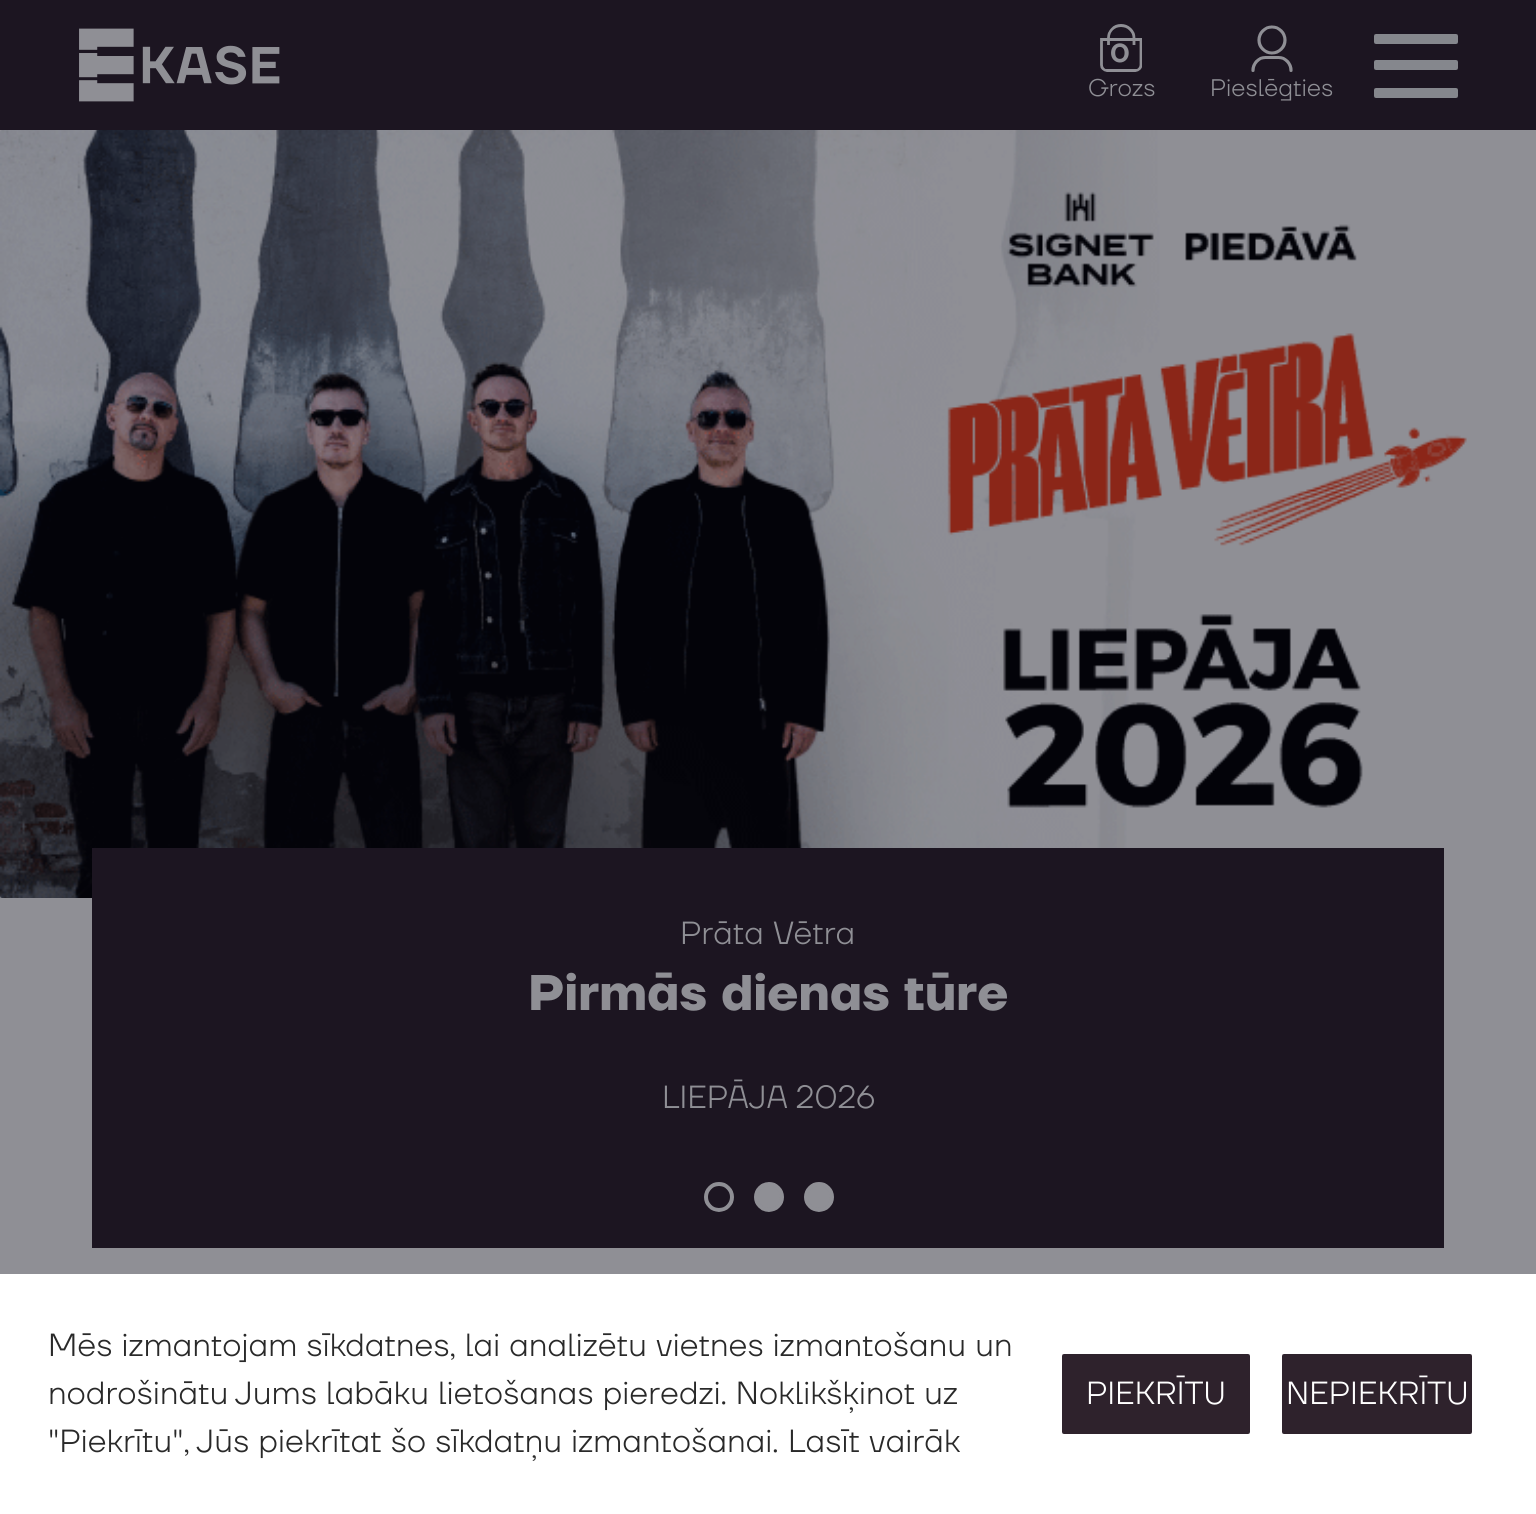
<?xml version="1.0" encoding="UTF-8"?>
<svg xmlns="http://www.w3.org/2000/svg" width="1536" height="1514">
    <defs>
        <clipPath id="clip1"><rect x="1100" y="24" width="42" height="48" rx="2"/></clipPath>
    </defs>
    <rect width="100%" height="100%" fill="#8F8F95"/>
    <rect x="0" y="0" width="1536" height="130" fill="#1C1521"/>
    <image x="79" y="28" width="201" height="74" href="img_01.png"/>
    <g clip-path="url(#clip1)">
        <path d="M 1101.5 39.5 H 1141 V 65 C 1141 68 1138.5 70.5 1135.5 70.5 H 1107 C 1104 70.5 1101.5 68 1101.5 65 Z" fill="none" stroke="#8F8F95" stroke-width="2.8"/>
    </g>
    <path d="M 1134 45 V 38 C 1134 31 1128 25.5 1121 25.5 C 1114 25.5 1108.5 31 1108.5 38 V 45" fill="none" stroke="#8F8F95" stroke-width="2.8"/>
    <image x="1111" y="43" width="18" height="20" href="img_02.png"/>
    <image x="1089" y="78" width="66" height="19" href="img_03.png"/>
    <path d="M 1253 70.5 C 1253 63.5 1258.5 57.5 1265.5 57.5 H 1278.5 C 1285.5 57.5 1291 63.5 1291 70.5" fill="none" stroke="#8F8F95" stroke-width="3.2" stroke-linecap="round"/>
    <circle cx="1272" cy="40" r="13" fill="none" stroke="#8F8F95" stroke-width="3.2"/>
    <image x="1212" y="78" width="121" height="23" href="img_04.png"/>
    <rect x="1374" y="34" width="84" height="10" rx="2" fill="#85878D"/>
    <rect x="1374" y="60" width="84" height="10" rx="2" fill="#85878D"/>
    <rect x="1374" y="88" width="84" height="10" rx="2" fill="#85878D"/>
    <image x="0" y="130" width="1467" height="768" href="img_05.png"/>
    <rect x="92" y="848" width="1352" height="400" fill="#1C1521"/>
    <image x="682" y="921" width="171" height="24" href="img_06.png"/>
    <image x="531" y="972" width="476" height="39" href="img_07.png"/>
    <image x="664" y="1079" width="210" height="30" href="img_08.png"/>
    <circle cx="719" cy="1197" r="13" fill="none" stroke="#8F8F95" stroke-width="4"/>
    <circle cx="769" cy="1197" r="13" fill="#8F8F95" stroke="#8F8F95" stroke-width="4"/>
    <circle cx="819" cy="1197" r="13" fill="#8F8F95" stroke="#8F8F95" stroke-width="4"/>
    <rect x="0" y="1274" width="1536" height="240" fill="#FFFFFF"/>
    <image x="50" y="1331" width="961" height="32" href="img_09.png"/>
    <image x="50" y="1379" width="907" height="34" href="img_10.png"/>
    <image x="50" y="1427" width="727" height="34" href="img_11.png"/>
    <image x="790" y="1429" width="170" height="24" href="img_12.png"/>
    <rect x="1063" y="1355" width="186" height="78" rx="1" fill="#2E222C" stroke="#2E222C" stroke-width="2"/>
    <image x="1088" y="1375" width="136" height="30" href="img_13.png"/>
    <rect x="1283" y="1355" width="188" height="78" rx="1" fill="#2E222C" stroke="#2E222C" stroke-width="2"/>
    <image x="1288" y="1375" width="178" height="30" href="img_14.png"/>
</svg>
